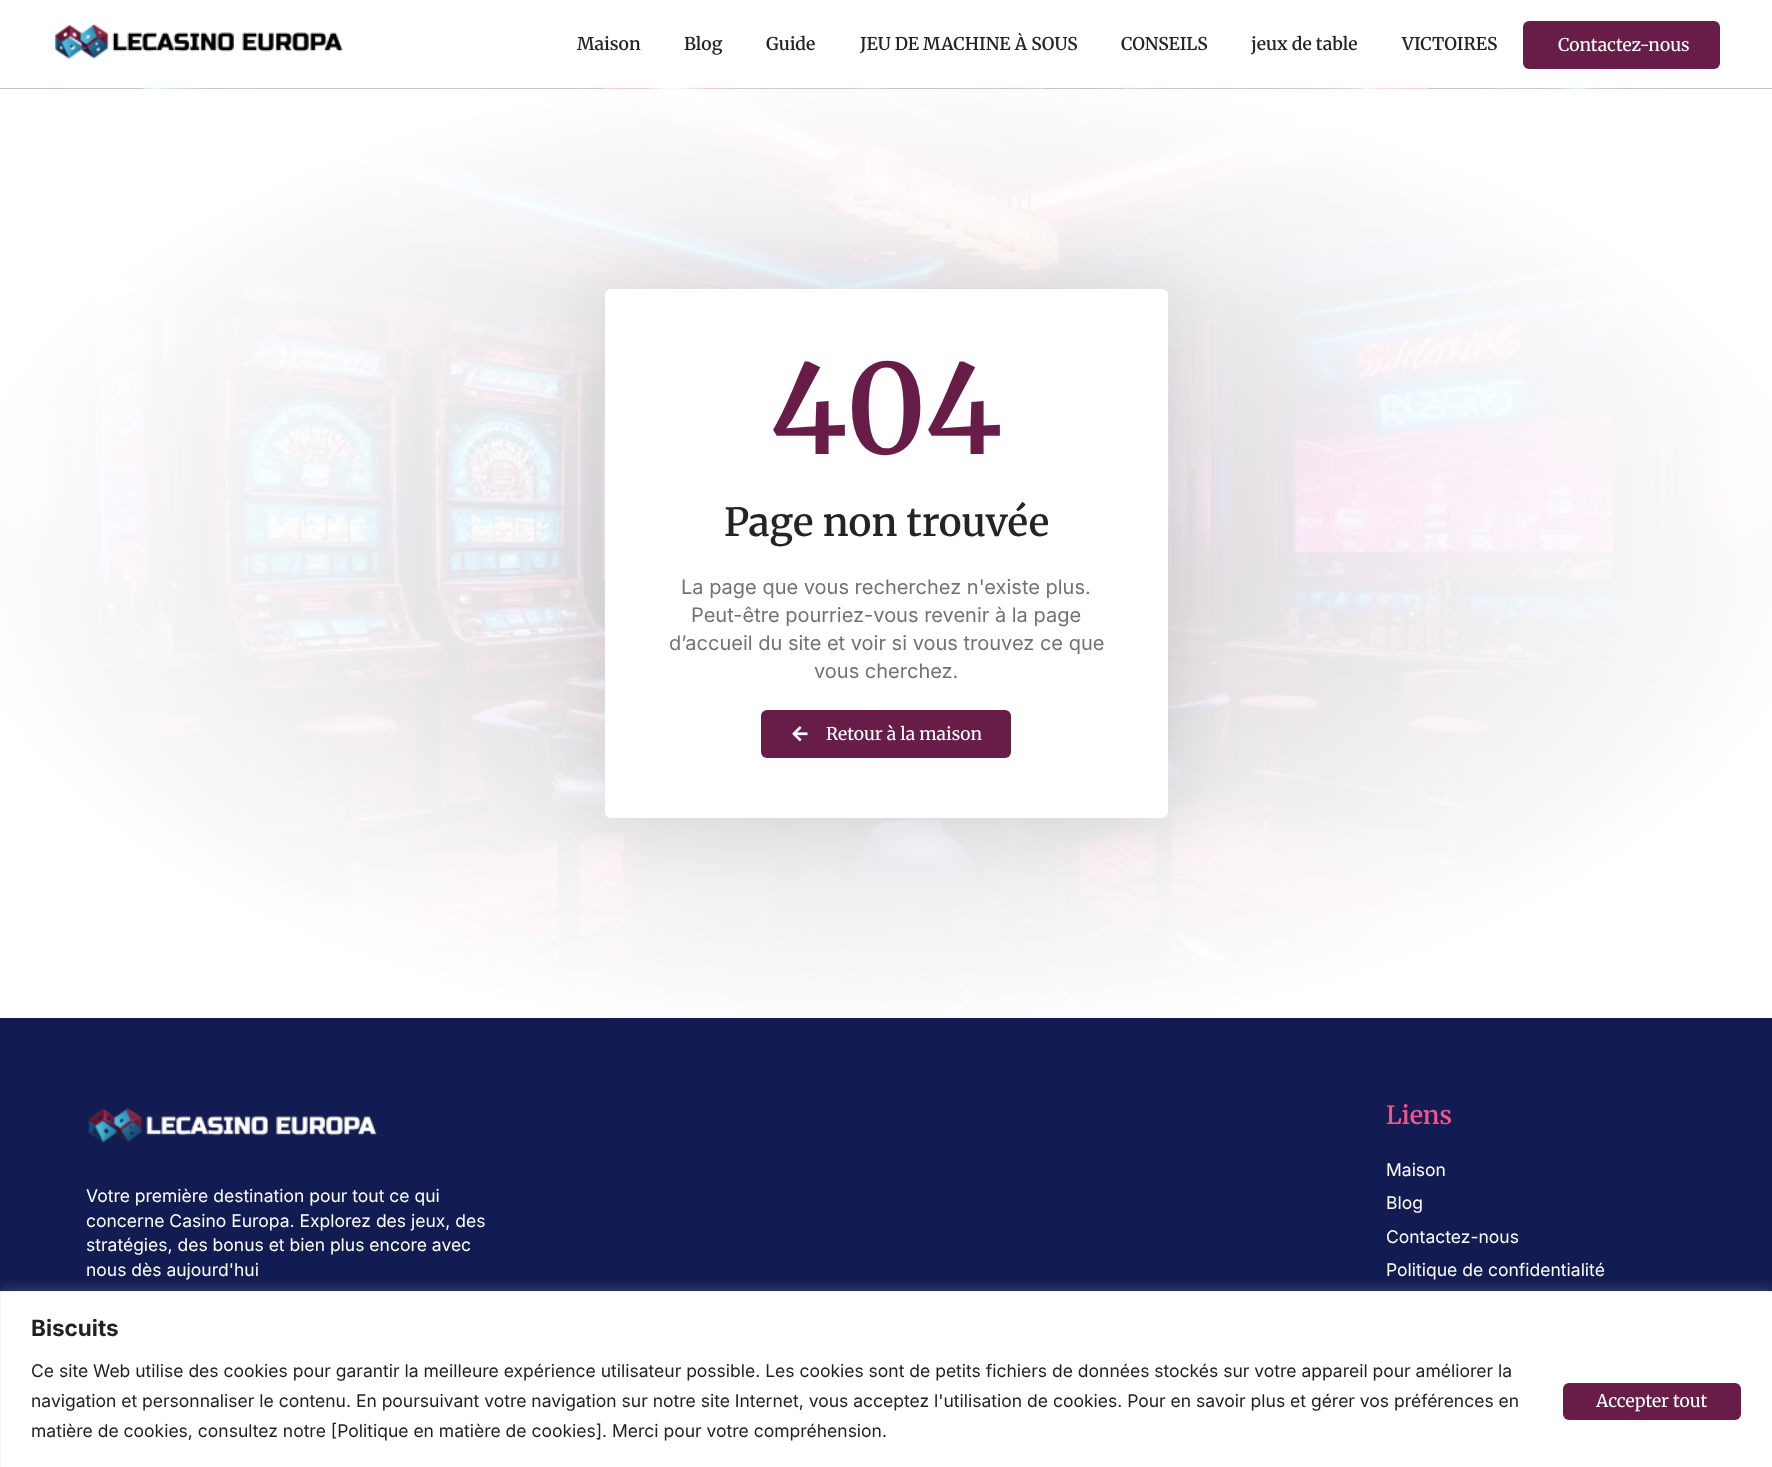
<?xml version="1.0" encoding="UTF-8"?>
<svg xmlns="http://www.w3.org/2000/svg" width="1772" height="1467">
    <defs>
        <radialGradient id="g1" gradientUnits="userSpaceOnUse" cx="0" cy="0" r="1" gradientTransform="matrix(1253 0 0 657 886 553)"><stop offset="0" stop-color="#FFFFFF" stop-opacity="0.8"/><stop offset="0.75" stop-color="#FFFFFF"/></radialGradient>
        <filter id="blur1" x="-50%" y="-200%" width="200%" height="500%"><feGaussianBlur stdDeviation="37.5"/></filter>
        <filter id="blur2" x="-50%" y="-200%" width="200%" height="500%"><feGaussianBlur stdDeviation="6"/></filter>
    </defs>
    <rect width="100%" height="100%" fill="#FFFFFF"/>
    <image x="54" y="23" width="289" height="47" href="img_01.png"/>
    <text x="577" y="50" font-family="Merriweather" font-size="17.5" font-weight="600" fill="#212528">Maison</text>
    <text x="684" y="50" font-family="Merriweather" font-size="17.5" font-weight="600" fill="#212528">Blog</text>
    <text x="766" y="50" font-family="Merriweather" font-size="17.5" font-weight="600" fill="#212528">Guide</text>
    <text x="860" y="50" font-family="Merriweather" font-size="17.5" font-weight="600" fill="#212528">JEU DE MACHINE À SOUS</text>
    <text x="1121" y="50" font-family="Merriweather" font-size="17.5" font-weight="600" fill="#212528">CONSEILS</text>
    <text x="1251" y="50" font-family="Merriweather" font-size="17.5" font-weight="600" fill="#212528">jeux de table</text>
    <text x="1402" y="50" font-family="Merriweather" font-size="17.5" font-weight="600" fill="#212528">VICTOIRES</text>
    <rect x="1523" y="21" width="197" height="48" rx="6" fill="#681D49"/>
    <text x="1558" y="51" font-family="Merriweather" font-size="17.5" fill="#FFFFFF">Contactez-nous</text>
    <image x="0" y="88" width="1772" height="930" href="img_02.png"/>
    <rect x="0" y="89" width="1772" height="929" fill="url(#g1)"/>
    <rect x="605" y="289" width="563" height="529" rx="6" fill="#000000" fill-opacity="0.1" filter="url(#blur1)"/>
    <rect x="605" y="289" width="563" height="529" rx="6" fill="#FFFFFF"/>
    <text x="770" y="454" font-family="Merriweather" font-size="124" font-weight="600" fill="#681D49">404</text>
    <text x="724" y="536" font-family="Merriweather" font-size="38.75" font-weight="600" fill="#212528">Page non trouvée</text>
    <text x="681" y="594" font-family="Inter" font-size="20" fill="#727272">La page que vous recherchez n'existe plus.</text>
    <text x="691" y="622" font-family="Inter" font-size="20" fill="#727272">Peut-être pourriez-vous revenir à la page</text>
    <text x="669" y="650" font-family="Inter" font-size="20" fill="#727272">d’accueil du site et voir si vous trouvez ce que</text>
    <text x="814" y="678" font-family="Inter" font-size="20" fill="#727272">vous cherchez.</text>
    <rect x="761" y="710" width="250" height="48" rx="6" fill="#681D49"/>
    <image x="792" y="726" width="16" height="16" href="img_03.png"/>
    <text x="826" y="740" font-family="Merriweather" font-size="17.5" fill="#FFFFFF">Retour à la maison</text>
    <rect x="0" y="1018" width="1772" height="273" fill="#121C52"/>
    <image x="88" y="1107" width="289" height="47" href="img_04.png"/>
    <text font-family="Inter" font-size="17.5" fill="#FFFFFF">
        <tspan x="86" y="1202">Votre première destination pour tout ce qui</tspan>
        <tspan x="86" y="1227">concerne Casino Europa. Explorez des jeux, des</tspan>
        <tspan x="86" y="1251">stratégies, des bonus et bien plus encore avec</tspan>
        <tspan x="86" y="1276">nous dès aujourd'hui</tspan>
    </text>
    <text x="1386" y="1124" font-family="Merriweather" font-size="25" font-weight="600" fill="#F1568A">Liens</text>
    <text font-family="Inter" font-size="17.5" fill="#FFFFFF">
        <tspan x="1386" y="1176">Maison</tspan>
        <tspan x="1386" y="1209">Blog</tspan>
        <tspan x="1386" y="1243">Contactez-nous</tspan>
        <tspan x="1386" y="1276">Politique de confidentialité</tspan>
    </text>
    <rect x="0" y="1290" width="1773" height="176" fill="#ACABAB" fill-opacity="0.3" filter="url(#blur2)"/>
    <rect x="0.5" y="1291.5" width="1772" height="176" fill="#FFFFFF" stroke="#F4F4F4"/>
    <text x="31" y="1336" font-family="Inter" font-size="22.5" font-weight="700" fill="#212121">Biscuits</text>
    <text font-family="Inter" font-size="17.5" fill="#212121">
        <tspan x="31" y="1377">Ce site Web utilise des cookies pour garantir la meilleure expérience utilisateur possible. Les cookies sont de petits fichiers de données stockés sur votre appareil pour améliorer la</tspan>
        <tspan x="31" y="1407">navigation et personnaliser le contenu. En poursuivant votre navigation sur notre site Internet, vous acceptez l'utilisation de cookies. Pour en savoir plus et gérer vos préférences en</tspan>
        <tspan x="31" y="1437">matière de cookies, consultez notre [Politique en matière de cookies]. Merci pour votre compréhension.</tspan>
    </text>
    <rect x="1563" y="1383" width="178" height="37" rx="6" fill="#681D49"/>
    <text x="1596" y="1407" font-family="Merriweather" font-size="17.5" fill="#FFFFFF">Accepter tout</text>
</svg>
